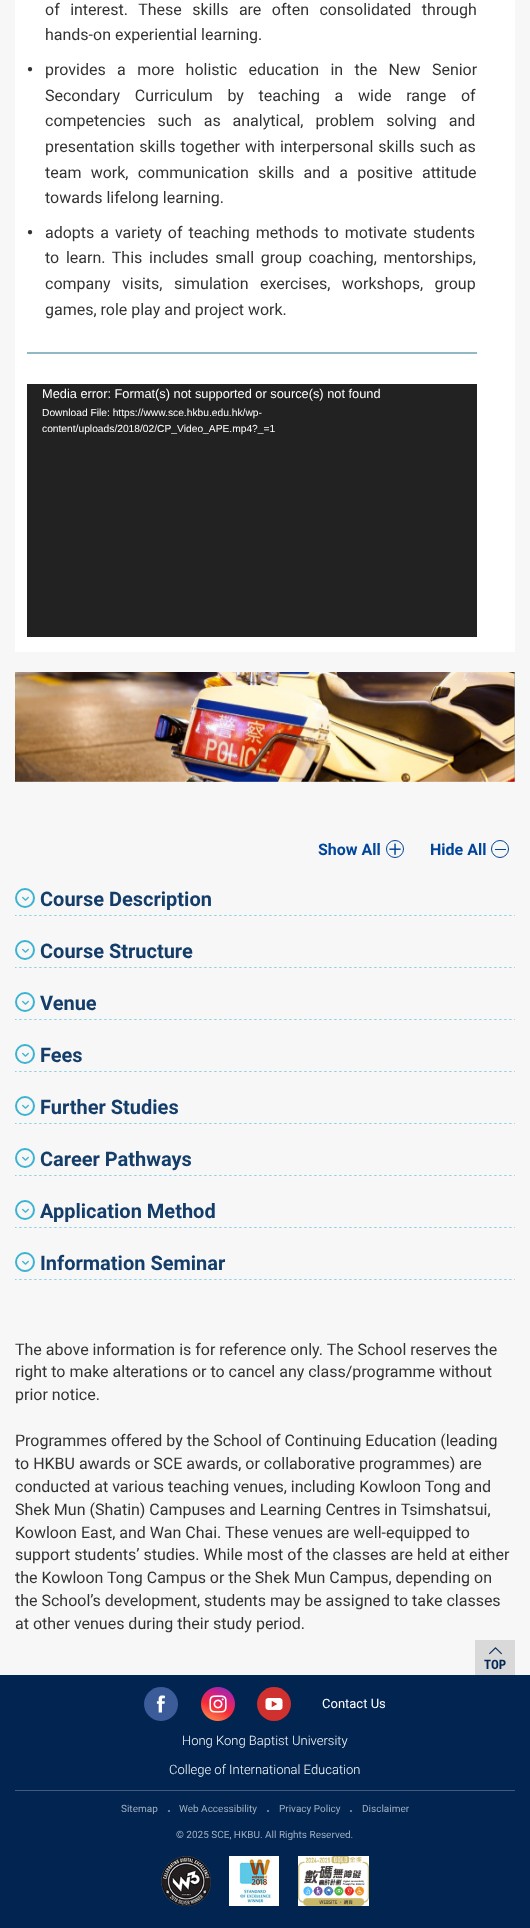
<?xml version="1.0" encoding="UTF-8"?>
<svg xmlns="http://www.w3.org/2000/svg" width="530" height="1928">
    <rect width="100%" height="100%" fill="#F7F7F7"/>
    <rect x="15" y="0" width="500" height="652" fill="#FFFFFF"/>
    <text font-family="Roboto" font-size="16" fill="#333333">
        <tspan x="45" y="15" word-spacing="6.5">of interest. These skills are often consolidated through</tspan>
        <tspan x="45" y="40">hands-on experiential learning.</tspan>
    </text>
    <text x="27" y="72" font-family="Liberation Sans" font-size="10" fill="#333333">●</text>
    <text font-family="Roboto" font-size="16" fill="#333333">
        <tspan x="45" y="75" word-spacing="7.5">provides a more holistic education in the New Senior</tspan>
        <tspan x="45" y="101" word-spacing="10.75">Secondary Curriculum by teaching a wide range of</tspan>
        <tspan x="45" y="126" word-spacing="8">competencies such as analytical, problem solving and</tspan>
        <tspan x="45" y="152" word-spacing="1">presentation skills together with interpersonal skills such as</tspan>
        <tspan x="45" y="178" word-spacing="5.25">team work, communication skills and a positive attitude</tspan>
        <tspan x="45" y="203">towards lifelong learning.</tspan>
    </text>
    <text x="27" y="235" font-family="Liberation Sans" font-size="10" fill="#333333">●</text>
    <text font-family="Roboto" font-size="16" fill="#333333">
        <tspan x="45" y="238" word-spacing="2">adopts a variety of teaching methods to motivate students</tspan>
        <tspan x="45" y="263" word-spacing="2.75">to learn. This includes small group coaching, mentorships,</tspan>
        <tspan x="45" y="289" word-spacing="7.5">company visits, simulation exercises, workshops, group</tspan>
        <tspan x="45" y="315">games, role play and project work.</tspan>
    </text>
    <rect x="27" y="352" width="450" height="2" fill="#91B9C3"/>
    <rect x="27" y="384" width="450" height="253" fill="#222222"/>
    <text x="42" y="398" font-family="Liberation Sans" font-size="12.8" fill="#FFFFFF">Media error: Format(s) not supported or source(s) not found</text>
    <text font-family="Liberation Sans" font-size="10.25" fill="#FFFFFF">
        <tspan x="42" y="416">Download File: https://www.sce.hkbu.edu.hk/wp-</tspan>
        <tspan x="42" y="432">content/uploads/2018/02/CP_Video_APE.mp4?_=1</tspan>
    </text>
    <image x="15" y="672" width="500" height="110" href="img_01.png"/>
    <text x="318" y="855" font-family="Roboto" font-size="16" font-weight="700" fill="#01459A">Show All</text>
    <circle cx="395" cy="849" r="8.5" fill="none" stroke="#01459A"/>
    <image x="389" y="843" width="12" height="12" href="img_02.png"/>
    <text x="430" y="855" font-family="Roboto" font-size="16" font-weight="700" fill="#01459A">Hide All</text>
    <circle cx="500" cy="849" r="8.5" fill="none" stroke="#01459A"/>
    <rect x="495" y="849" width="11" height="1" fill="#01459A"/>
    <image x="15" y="915" width="500" height="1" href="img_03.png"/>
    <circle cx="25" cy="898" r="9" fill="none" stroke="#3CB3D0" stroke-width="2"/>
    <image x="22" y="896" width="7" height="5" href="img_04.png"/>
    <text x="40" y="906" font-family="Roboto" font-size="20" font-weight="700" fill="#143D6A">Course Description</text>
    <image x="15" y="967" width="500" height="1" href="img_03.png"/>
    <circle cx="25" cy="950" r="9" fill="none" stroke="#3CB3D0" stroke-width="2"/>
    <image x="22" y="948" width="7" height="5" href="img_04.png"/>
    <text x="40" y="958" font-family="Roboto" font-size="20" font-weight="700" fill="#143D6A">Course Structure</text>
    <image x="15" y="1019" width="500" height="1" href="img_03.png"/>
    <circle cx="25" cy="1002" r="9" fill="none" stroke="#3CB3D0" stroke-width="2"/>
    <image x="22" y="1000" width="7" height="5" href="img_04.png"/>
    <text x="40" y="1010" font-family="Roboto" font-size="20" font-weight="700" fill="#143D6A">Venue</text>
    <image x="15" y="1071" width="500" height="1" href="img_03.png"/>
    <circle cx="25" cy="1054" r="9" fill="none" stroke="#3CB3D0" stroke-width="2"/>
    <image x="22" y="1052" width="7" height="5" href="img_04.png"/>
    <text x="40" y="1062" font-family="Roboto" font-size="20" font-weight="700" fill="#143D6A">Fees</text>
    <image x="15" y="1123" width="500" height="1" href="img_03.png"/>
    <circle cx="25" cy="1106" r="9" fill="none" stroke="#3CB3D0" stroke-width="2"/>
    <image x="22" y="1104" width="7" height="5" href="img_04.png"/>
    <text x="40" y="1114" font-family="Roboto" font-size="20" font-weight="700" fill="#143D6A">Further Studies</text>
    <image x="15" y="1175" width="500" height="1" href="img_03.png"/>
    <circle cx="25" cy="1158" r="9" fill="none" stroke="#3CB3D0" stroke-width="2"/>
    <image x="22" y="1156" width="7" height="5" href="img_04.png"/>
    <text x="40" y="1166" font-family="Roboto" font-size="20" font-weight="700" fill="#143D6A">Career Pathways</text>
    <image x="15" y="1227" width="500" height="1" href="img_03.png"/>
    <circle cx="25" cy="1210" r="9" fill="none" stroke="#3CB3D0" stroke-width="2"/>
    <image x="22" y="1208" width="7" height="5" href="img_04.png"/>
    <text x="40" y="1218" font-family="Roboto" font-size="20" font-weight="700" fill="#143D6A">Application Method</text>
    <image x="15" y="1279" width="500" height="1" href="img_03.png"/>
    <circle cx="25" cy="1262" r="9" fill="none" stroke="#3CB3D0" stroke-width="2"/>
    <image x="22" y="1260" width="7" height="5" href="img_04.png"/>
    <text x="40" y="1270" font-family="Roboto" font-size="20" font-weight="700" fill="#143D6A">Information Seminar</text>
    <text font-family="Roboto" font-size="16" fill="#333333">
        <tspan x="15" y="1355">The above information is for reference only. The School reserves the</tspan>
        <tspan x="15" y="1377">right to make alterations or to cancel any class/programme without</tspan>
        <tspan x="15" y="1400">prior notice.</tspan>
    </text>
    <text font-family="Roboto" font-size="16" fill="#333333">
        <tspan x="15" y="1446">Programmes offered by the School of Continuing Education (leading</tspan>
        <tspan x="15" y="1469">to HKBU awards or SCE awards, or collaborative programmes) are</tspan>
        <tspan x="15" y="1492">conducted at various teaching venues, including Kowloon Tong and</tspan>
        <tspan x="15" y="1515">Shek Mun (Shatin) Campuses and Learning Centres in Tsimshatsui,</tspan>
        <tspan x="15" y="1538">Kowloon East, and Wan Chai. These venues are well-equipped to</tspan>
        <tspan x="15" y="1560">support students’ studies. While most of the classes are held at either</tspan>
        <tspan x="15" y="1583">the Kowloon Tong Campus or the Shek Mun Campus, depending on</tspan>
        <tspan x="15" y="1606">the School’s development, students may be assigned to take classes</tspan>
        <tspan x="15" y="1629">at other venues during their study period.</tspan>
    </text>
    <rect x="0" y="1675" width="530" height="253" fill="#012550"/>
    <rect x="475" y="1640" width="40" height="35" fill="#D9D9D9"/>
    <image x="489" y="1647" width="13" height="8" href="img_05.png"/>
    <text x="484" y="1669" font-family="Roboto Condensed" font-size="13" font-weight="700" fill="#002653">TOP</text>
    <rect x="15" y="1790" width="500" height="1" fill="#415C7D"/>
    <image x="144" y="1687" width="34" height="34" href="img_06.png"/>
    <image x="201" y="1687" width="34" height="34" href="img_07.png"/>
    <image x="257" y="1687" width="34" height="34" href="img_08.png"/>
    <text x="322" y="1708" font-family="Roboto" font-size="13" fill="#FFFFFF">Contact Us</text>
    <text x="182" y="1745" font-family="Roboto" font-size="13" font-weight="300" fill="#FFFFFF">Hong Kong Baptist University</text>
    <text x="169" y="1774" font-family="Roboto" font-size="13" font-weight="300" fill="#FFFFFF">College of International Education</text>
    <text x="121" y="1812" font-family="Roboto" font-size="10" fill="#A0AEBF">Sitemap</text>
    <text x="167" y="1812" font-family="Roboto" font-size="14" font-weight="700" fill="#7A8DA4">.</text>
    <text x="179" y="1812" font-family="Roboto" font-size="10" fill="#A0AEBF">Web Accessibility</text>
    <text x="266" y="1812" font-family="Roboto" font-size="14" font-weight="700" fill="#7A8DA4">.</text>
    <text x="279" y="1812" font-family="Roboto" font-size="10" fill="#A0AEBF">Privacy Policy</text>
    <text x="349" y="1812" font-family="Roboto" font-size="14" font-weight="700" fill="#7A8DA4">.</text>
    <text x="362" y="1812" font-family="Roboto" font-size="10" fill="#A0AEBF">Disclaimer</text>
    <text x="176" y="1838" font-family="Roboto" font-size="10" fill="#A0AEBF">© 2025 SCE, HKBU. All Rights Reserved.</text>
    <image x="161" y="1856" width="50" height="50" href="img_09.png"/>
    <image x="229" y="1856" width="50" height="50" href="img_10.png"/>
    <rect x="298" y="1856" width="71" height="50" fill="#FFFFFF"/>
    <image x="298" y="1856" width="71" height="50" href="img_11.png"/>
</svg>
